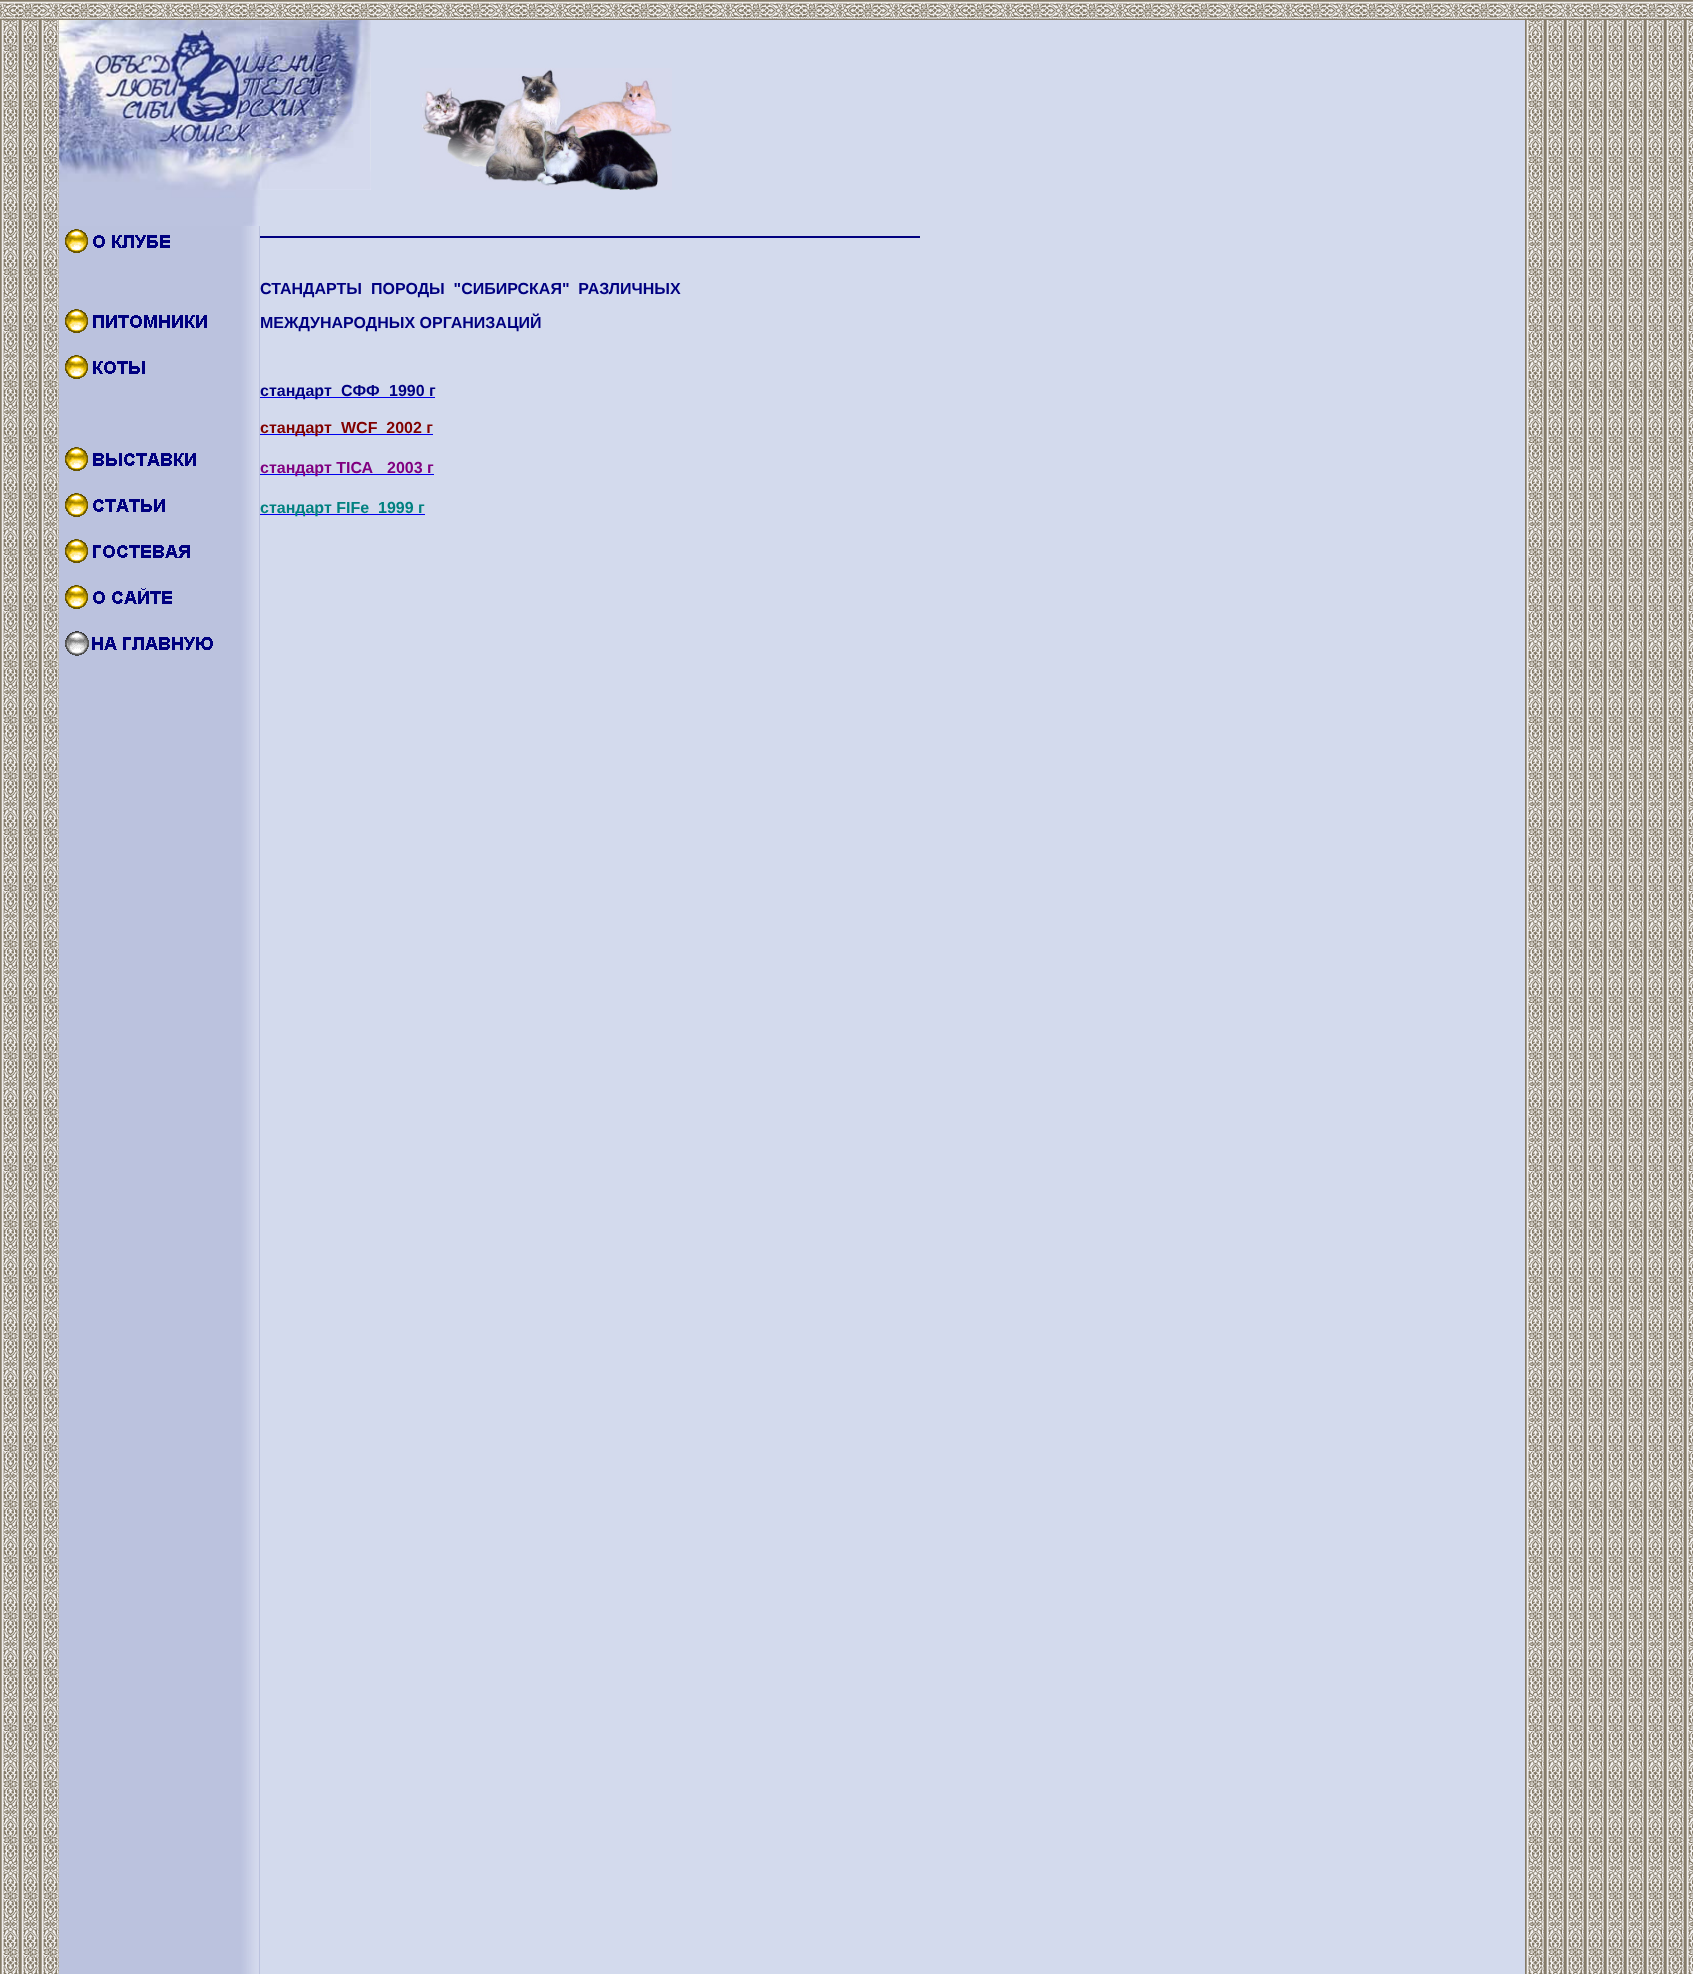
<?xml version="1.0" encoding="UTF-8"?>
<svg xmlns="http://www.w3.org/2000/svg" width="1693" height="1974">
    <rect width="100%" height="100%" fill="#D3DAED"/>
    <image x="0" y="0" width="1693" height="20" href="img_01.png"/>
    <image x="0" y="20" width="59" height="1954" href="img_02.png"/>
    <image x="59" y="226" width="201" height="1748" href="img_03.png"/>
    <image x="59" y="20" width="201" height="206" href="img_04.png"/>
    <image x="65" y="229" width="105" height="24" href="img_05.png"/>
    <image x="65" y="309" width="142" height="24" href="img_06.png"/>
    <image x="65" y="355" width="80" height="24" href="img_07.png"/>
    <image x="65" y="447" width="131" height="24" href="img_08.png"/>
    <image x="65" y="493" width="100" height="24" href="img_09.png"/>
    <image x="65" y="539" width="125" height="24" href="img_10.png"/>
    <image x="65" y="585" width="107" height="24" href="img_11.png"/>
    <image x="65" y="631" width="148" height="25" href="img_12.png"/>
    <image x="260" y="20" width="111" height="170" href="img_13.png"/>
    <image x="420" y="68" width="252" height="122" href="img_14.png"/>
    <rect x="260" y="236" width="660" height="2" fill="#000080"/>
    <text x="260" y="294" font-family="Liberation Sans" font-size="16" font-weight="700" fill="#000080">СТАНДАРТЫ</text>
    <text x="371" y="294" font-family="Liberation Sans" font-size="16" font-weight="700" fill="#000080" xml:space="preserve">ПОРОДЫ  "СИБИРСКАЯ"  РАЗЛИЧНЫХ</text>
    <text x="260" y="328" font-family="Liberation Sans" font-size="16" font-weight="700" fill="#000080">МЕЖДУНАРОДНЫХ ОРГАНИЗАЦИЙ</text>
    <rect x="260" y="397" width="175" height="1" fill="#0000EE"/>
    <text x="260" y="396" font-family="Liberation Sans" font-size="16" font-weight="700" fill="#000080">стандарт</text>
    <text x="341" y="396" font-family="Liberation Sans" font-size="16" font-weight="700" fill="#000080">СФФ</text>
    <text x="389" y="396" font-family="Liberation Sans" font-size="16" font-weight="700" fill="#000080">1990 г</text>
    <rect x="260" y="434" width="173" height="1" fill="#0000EE"/>
    <text x="260" y="433" font-family="Liberation Sans" font-size="16" font-weight="700" fill="#800000">стандарт</text>
    <text x="341" y="433" font-family="Liberation Sans" font-size="16" font-weight="700" fill="#800000" xml:space="preserve">WCF  2002 г</text>
    <rect x="260" y="474" width="174" height="1" fill="#0000EE"/>
    <text x="260" y="473" font-family="Liberation Sans" font-size="16" font-weight="700" fill="#800080">стандарт TIСА</text>
    <text x="387" y="473" font-family="Liberation Sans" font-size="16" font-weight="700" fill="#800080">2003 г</text>
    <rect x="260" y="514" width="165" height="1" fill="#0000EE"/>
    <text x="260" y="513" font-family="Liberation Sans" font-size="16" font-weight="700" fill="#008080" xml:space="preserve">стандарт FIFe  1999 г</text>
    <image x="1525" y="20" width="168" height="1954" href="img_15.png"/>
</svg>
